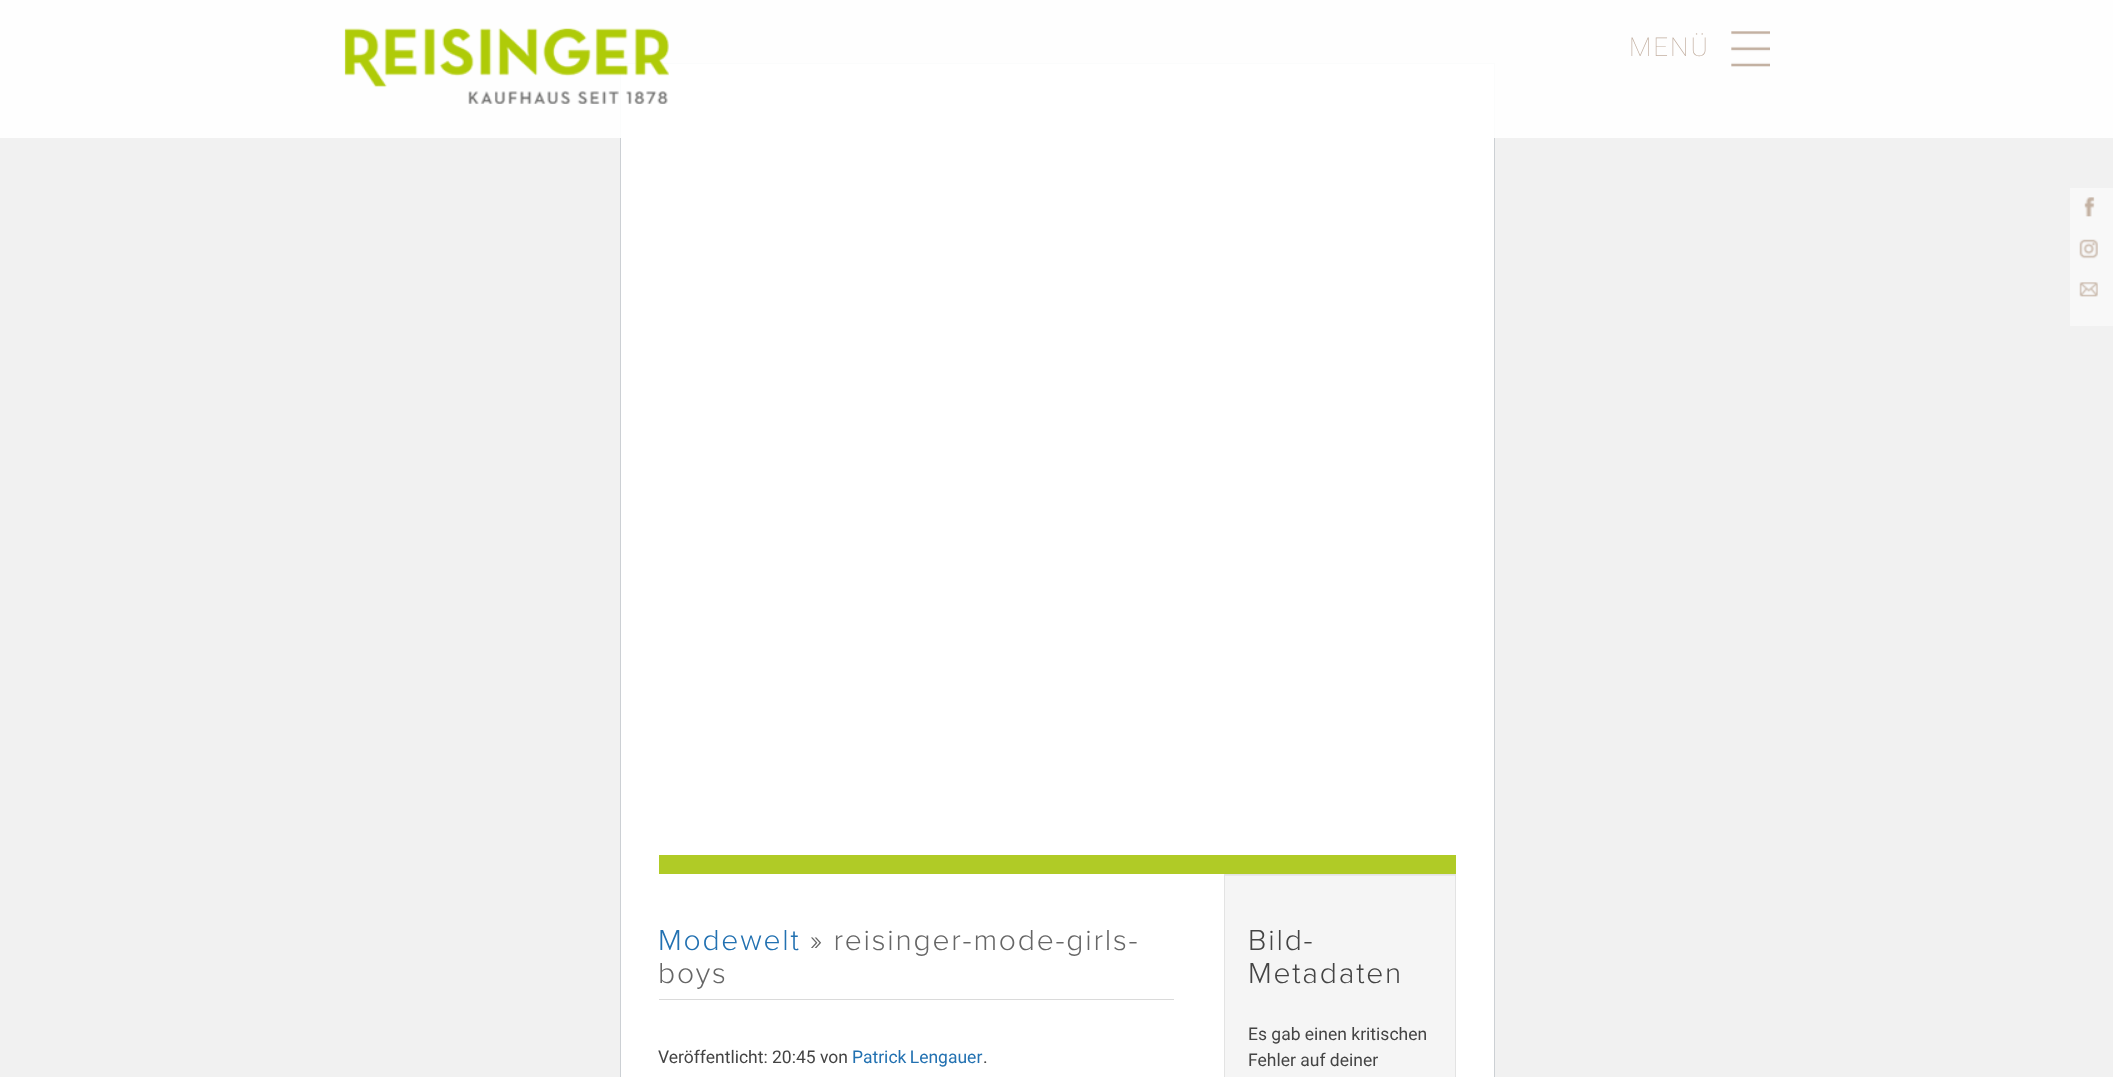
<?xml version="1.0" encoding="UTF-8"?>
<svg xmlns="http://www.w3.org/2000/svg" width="2113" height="1077">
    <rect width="100%" height="100%" fill="#F1F1F1"/>
    <rect x="620.5" y="63.5" width="874" height="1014" fill="#FFFFFF" stroke="#CCD0D4"/>
    <rect x="0" y="0" width="2113" height="138" fill="#FFFFFF" fill-opacity="0.92"/>
    <image x="344" y="28" width="325" height="76" href="img_01.png"/>
    <text x="1629" y="56" font-family="Roboto" font-size="26" font-weight="100" letter-spacing="2" fill="#C3B0A2">MENÜ</text>
    <image x="1731" y="31" width="39" height="36" href="img_02.png"/>
    <rect x="2070" y="188" width="43" height="138" fill="#F8F8F8"/>
    <image x="2084" y="197" width="11" height="20" href="img_03.png"/>
    <image x="2079" y="239" width="19" height="20" href="img_04.png"/>
    <image x="2079" y="282" width="19" height="15" href="img_05.png"/>
    <rect x="659" y="855" width="797" height="19" fill="#B0CB26"/>
    <rect x="659" y="999" width="515" height="1" fill="#DADADA"/>
    <text x="658" y="950" font-family="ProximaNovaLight" font-size="30" letter-spacing="1.8" fill="#2271B1">Modewelt</text>
    <text x="810" y="950" font-family="ProximaNovaLight" font-size="30" letter-spacing="1.8" fill="#666666">» reisinger-mode-girls-</text>
    <text x="658" y="983" font-family="ProximaNovaLight" font-size="30" letter-spacing="1.8" fill="#666666">boys</text>
    <text x="658" y="1063" font-family="Roboto" font-size="17.5" fill="#444444">Veröffentlicht: 20:45 von</text>
    <text x="852" y="1063" word-spacing="-1" font-family="Roboto" font-size="17.5" fill="#2271B1">Patrick Lengauer</text>
    <text x="983" y="1063" font-family="Roboto" font-size="17.5" fill="#444444">.</text>
    <rect x="1225" y="876" width="230" height="201" fill="#F5F5F5"/>
    <rect x="1225" y="875" width="230" height="1" fill="#E9E9E9"/>
    <rect x="1224.5" y="874.5" width="231" height="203" fill="none" stroke="#E3E3E3"/>
    <text font-family="ProximaNovaLight" font-size="30" letter-spacing="1.8" fill="#444444">
        <tspan x="1248" y="950">Bild-</tspan>
        <tspan x="1248" y="983">Metadaten</tspan>
    </text>
    <text font-family="Roboto" font-size="17.5" fill="#444444">
        <tspan x="1248" y="1040">Es gab einen kritischen</tspan>
        <tspan x="1248" y="1066">Fehler auf deiner</tspan>
    </text>
</svg>
